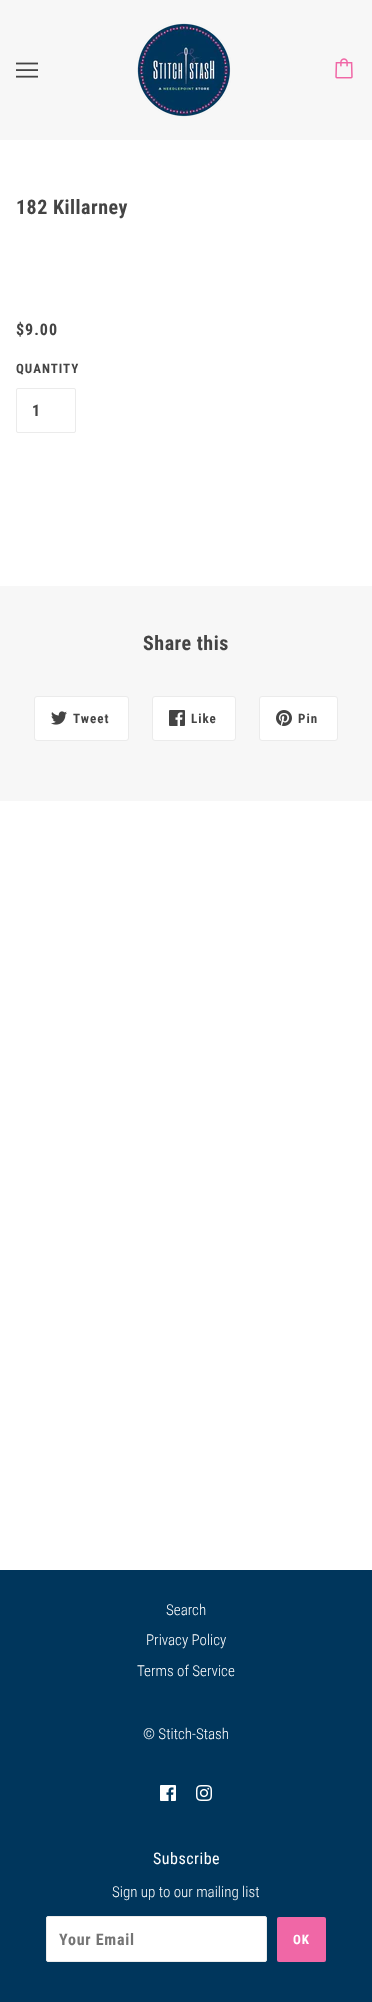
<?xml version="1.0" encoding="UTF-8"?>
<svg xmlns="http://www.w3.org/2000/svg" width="372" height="2002">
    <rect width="100%" height="100%" fill="#FFFFFF"/>
    <rect x="0" y="0" width="372" height="140" fill="#F7F7F7"/>
    <image x="16" y="62" width="22" height="16" href="img_01.png"/>
    <image x="137" y="23" width="94" height="94" href="img_02.png"/>
    <image x="335" y="58" width="18" height="21" href="img_03.png"/>
    <text x="16" y="214" font-family="Roboto Condensed" font-size="20" font-weight="700" letter-spacing="0.5" fill="#444444">182 Killarney</text>
    <text x="16" y="335" font-family="Roboto Condensed" font-size="16" font-weight="700" letter-spacing="1" fill="#444444">$9.00</text>
    <text x="16" y="373" font-family="Roboto Condensed" font-size="13" font-weight="700" letter-spacing="1" fill="#444444">QUANTITY</text>
    <rect x="16.5" y="388.5" width="59" height="44" rx="1.5" fill="none" stroke="#EBEBEB"/>
    <text x="32" y="416" font-family="Roboto Condensed" font-size="16" font-weight="700" letter-spacing="0.75" fill="#444444">1</text>
    <rect x="0" y="586" width="372" height="215" fill="#F7F7F7"/>
    <text x="143" y="650" font-family="Roboto Condensed" font-size="20" font-weight="700" letter-spacing="0.5" fill="#444444">Share this</text>
    <rect x="34.5" y="696.5" width="94" height="44" rx="2.5" fill="#FFFFFF" stroke="#EBEBEB"/>
    <image x="51" y="711" width="16" height="14" href="img_04.png"/>
    <text x="73" y="723" font-family="Roboto Condensed" font-size="13" font-weight="700" letter-spacing="1" fill="#444444">Tweet</text>
    <rect x="152.5" y="696.5" width="83" height="44" rx="2.5" fill="#FFFFFF" stroke="#EBEBEB"/>
    <image x="169" y="710" width="16" height="16" href="img_05.png"/>
    <text x="191" y="723" font-family="Roboto Condensed" font-size="13" font-weight="700" letter-spacing="1" fill="#444444">Like</text>
    <rect x="259.5" y="696.5" width="78" height="44" rx="2.5" fill="#FFFFFF" stroke="#EBEBEB"/>
    <image x="276" y="710" width="16" height="16" href="img_06.png"/>
    <text x="298" y="723" font-family="Roboto Condensed" font-size="13" font-weight="700" letter-spacing="1" fill="#444444">Pin</text>
    <rect x="0" y="1570" width="372" height="432" fill="#00365C"/>
    <text x="166" y="1615" font-family="Roboto Condensed" font-size="15" font-weight="300" fill="#FFFFFF">Search</text>
    <text x="146" y="1645" font-family="Roboto Condensed" font-size="15" font-weight="300" fill="#FFFFFF">Privacy Policy</text>
    <text x="137" y="1676" font-family="Roboto Condensed" font-size="15" font-weight="300" fill="#FFFFFF">Terms of Service</text>
    <text x="143" y="1739" font-family="Roboto Condensed" font-size="15" font-weight="300" fill="#FFFFFF">© Stitch-Stash</text>
    <image x="160" y="1785" width="16" height="16" href="img_07.png"/>
    <image x="196" y="1785" width="16" height="16" href="img_08.png"/>
    <text x="153" y="1864" font-family="Roboto Condensed" font-size="16" letter-spacing="0.5" fill="#FFFFFF">Subscribe</text>
    <text x="112" y="1897" font-family="Roboto Condensed" font-size="15" font-weight="300" fill="#FFFFFF">Sign up to our mailing list</text>
    <rect x="46.5" y="1916.5" width="220" height="45" rx="1.5" fill="#FFFFFF" stroke="#EBEBEB"/>
    <text x="59" y="1945" font-family="Roboto Condensed" font-size="16" font-weight="700" letter-spacing="0.75" fill="#757575">Your Email</text>
    <rect x="277" y="1917" width="49" height="45" rx="2" fill="#F067A6"/>
    <text x="293" y="1944" font-family="Roboto Condensed" font-size="13" font-weight="700" letter-spacing="1" fill="#FFFFFF">OK</text>
</svg>
